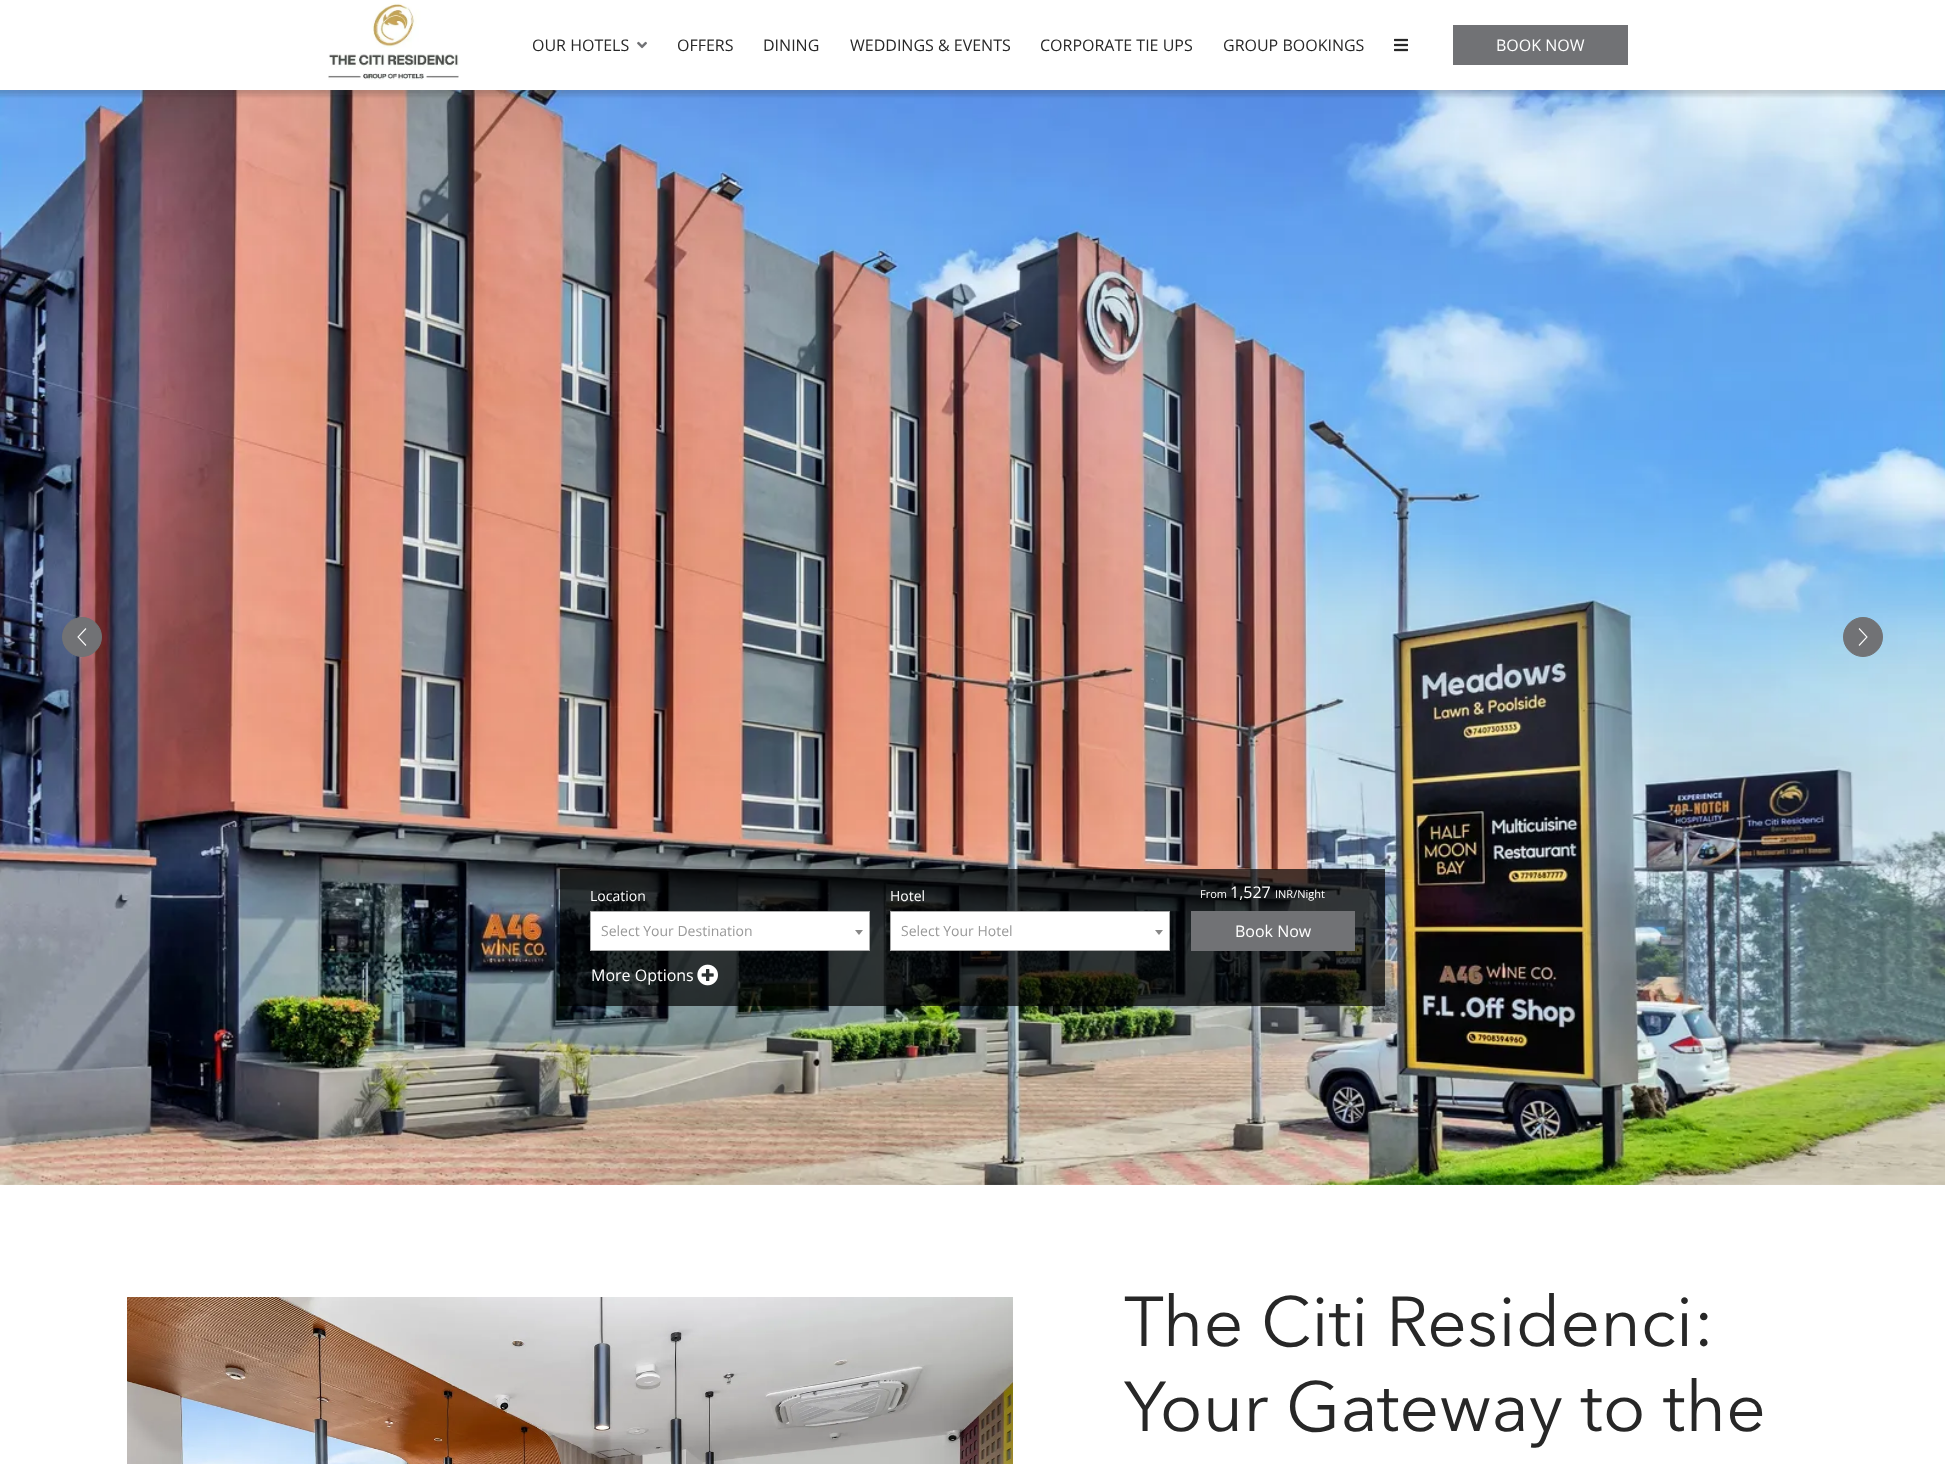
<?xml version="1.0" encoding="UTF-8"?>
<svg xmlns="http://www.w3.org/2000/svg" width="1945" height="1464">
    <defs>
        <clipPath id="clip1"><rect x="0" y="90" width="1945" height="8"/></clipPath>
        <filter id="blur1" x="-50%" y="-200%" width="200%" height="500%"><feGaussianBlur stdDeviation="2"/></filter>
    </defs>
    <rect width="100%" height="100%" fill="#FFFFFF"/>
    <image x="0" y="90" width="1945" height="1095" href="img_04.png"/>
    <g clip-path="url(#clip1)">
        <rect x="-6" y="5" width="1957" height="90" fill="#272727" fill-opacity="0.2" filter="url(#blur1)"/>
    </g>
    <image x="328" y="3" width="131" height="77" href="img_01.png"/>
    <text x="532" y="51" font-family="Open Sans" font-size="16" fill="#272727">OUR HOTELS</text>
    <image x="637" y="41" width="10" height="8" href="img_02.png"/>
    <text x="677" y="51" font-family="Open Sans" font-size="16" fill="#272727">OFFERS</text>
    <text x="763" y="51" font-family="Open Sans" font-size="16" fill="#272727">DINING</text>
    <text x="850" y="51" font-family="Open Sans" font-size="16" fill="#272727">WEDDINGS &amp; EVENTS</text>
    <text x="1040" y="51" font-family="Open Sans" font-size="16" fill="#272727">CORPORATE TIE UPS</text>
    <text x="1223" y="51" font-family="Open Sans" font-size="16" fill="#272727">GROUP BOOKINGS</text>
    <image x="1394" y="38" width="14" height="14" href="img_03.png"/>
    <rect x="1453" y="25" width="175" height="40" fill="#717275"/>
    <text x="1496" y="51" font-family="Open Sans" font-size="16" fill="#FFFFFF">BOOK NOW</text>
    <circle cx="82" cy="637" r="19.5" fill="#717275" stroke="#717275"/>
    <path d="M 86 628.5 L 78 637 L 86 645.5" fill="none" stroke="#FAFAFA" stroke-width="1.1"/>
    <circle cx="1863" cy="637" r="19.5" fill="#717275" stroke="#717275"/>
    <path d="M 1859 628.5 L 1867 637 L 1859 645.5" fill="none" stroke="#FAFAFA" stroke-width="1.1"/>
    <rect x="560" y="869" width="825" height="137" fill="#000000" fill-opacity="0.7"/>
    <text x="590" y="901" font-family="Open Sans" font-size="14" fill="#FFFFFF">Location</text>
    <rect x="590.5" y="911.5" width="279" height="39" fill="#FFFFFF" stroke="#AAAAAA"/>
    <text x="601" y="936" font-family="Open Sans" font-size="14" fill="#999999">Select Your Destination</text>
    <path d="M 855 930 H 863 L 859 935 Z" fill="#888888"/>
    <text x="890" y="901" font-family="Open Sans" font-size="14" fill="#FFFFFF">Hotel</text>
    <rect x="890.5" y="911.5" width="279" height="39" fill="#FFFFFF" stroke="#AAAAAA"/>
    <text x="901" y="936" font-family="Open Sans" font-size="14" fill="#999999">Select Your Hotel</text>
    <path d="M 1155 930 H 1163 L 1159 935 Z" fill="#888888"/>
    <text x="1200" y="898" font-family="Open Sans" font-size="11" fill="#FFFFFF">From</text>
    <text x="1230" y="898" font-family="Open Sans" font-size="16" fill="#FFFFFF">1,527</text>
    <text x="1275" y="898" font-family="Open Sans" font-size="11" fill="#FFFFFF">INR/Night</text>
    <rect x="1191" y="911" width="164" height="40" fill="#717275"/>
    <text x="1235" y="937" font-family="Open Sans" font-size="16" fill="#FFFFFF">Book Now</text>
    <text x="591" y="981" font-family="Open Sans" font-size="16" fill="#FFFFFF">More Options</text>
    <image x="697" y="964" width="21" height="22" href="img_05.png"/>
    <image x="127" y="1297" width="886" height="167" href="img_06.png"/>
    <text font-family="Avenir Next" font-size="70" fill="#272727">
        <tspan x="1124" y="1346">The Citi Residenci:</tspan>
        <tspan x="1124" y="1431">Your Gateway to the</tspan>
    </text>
</svg>
